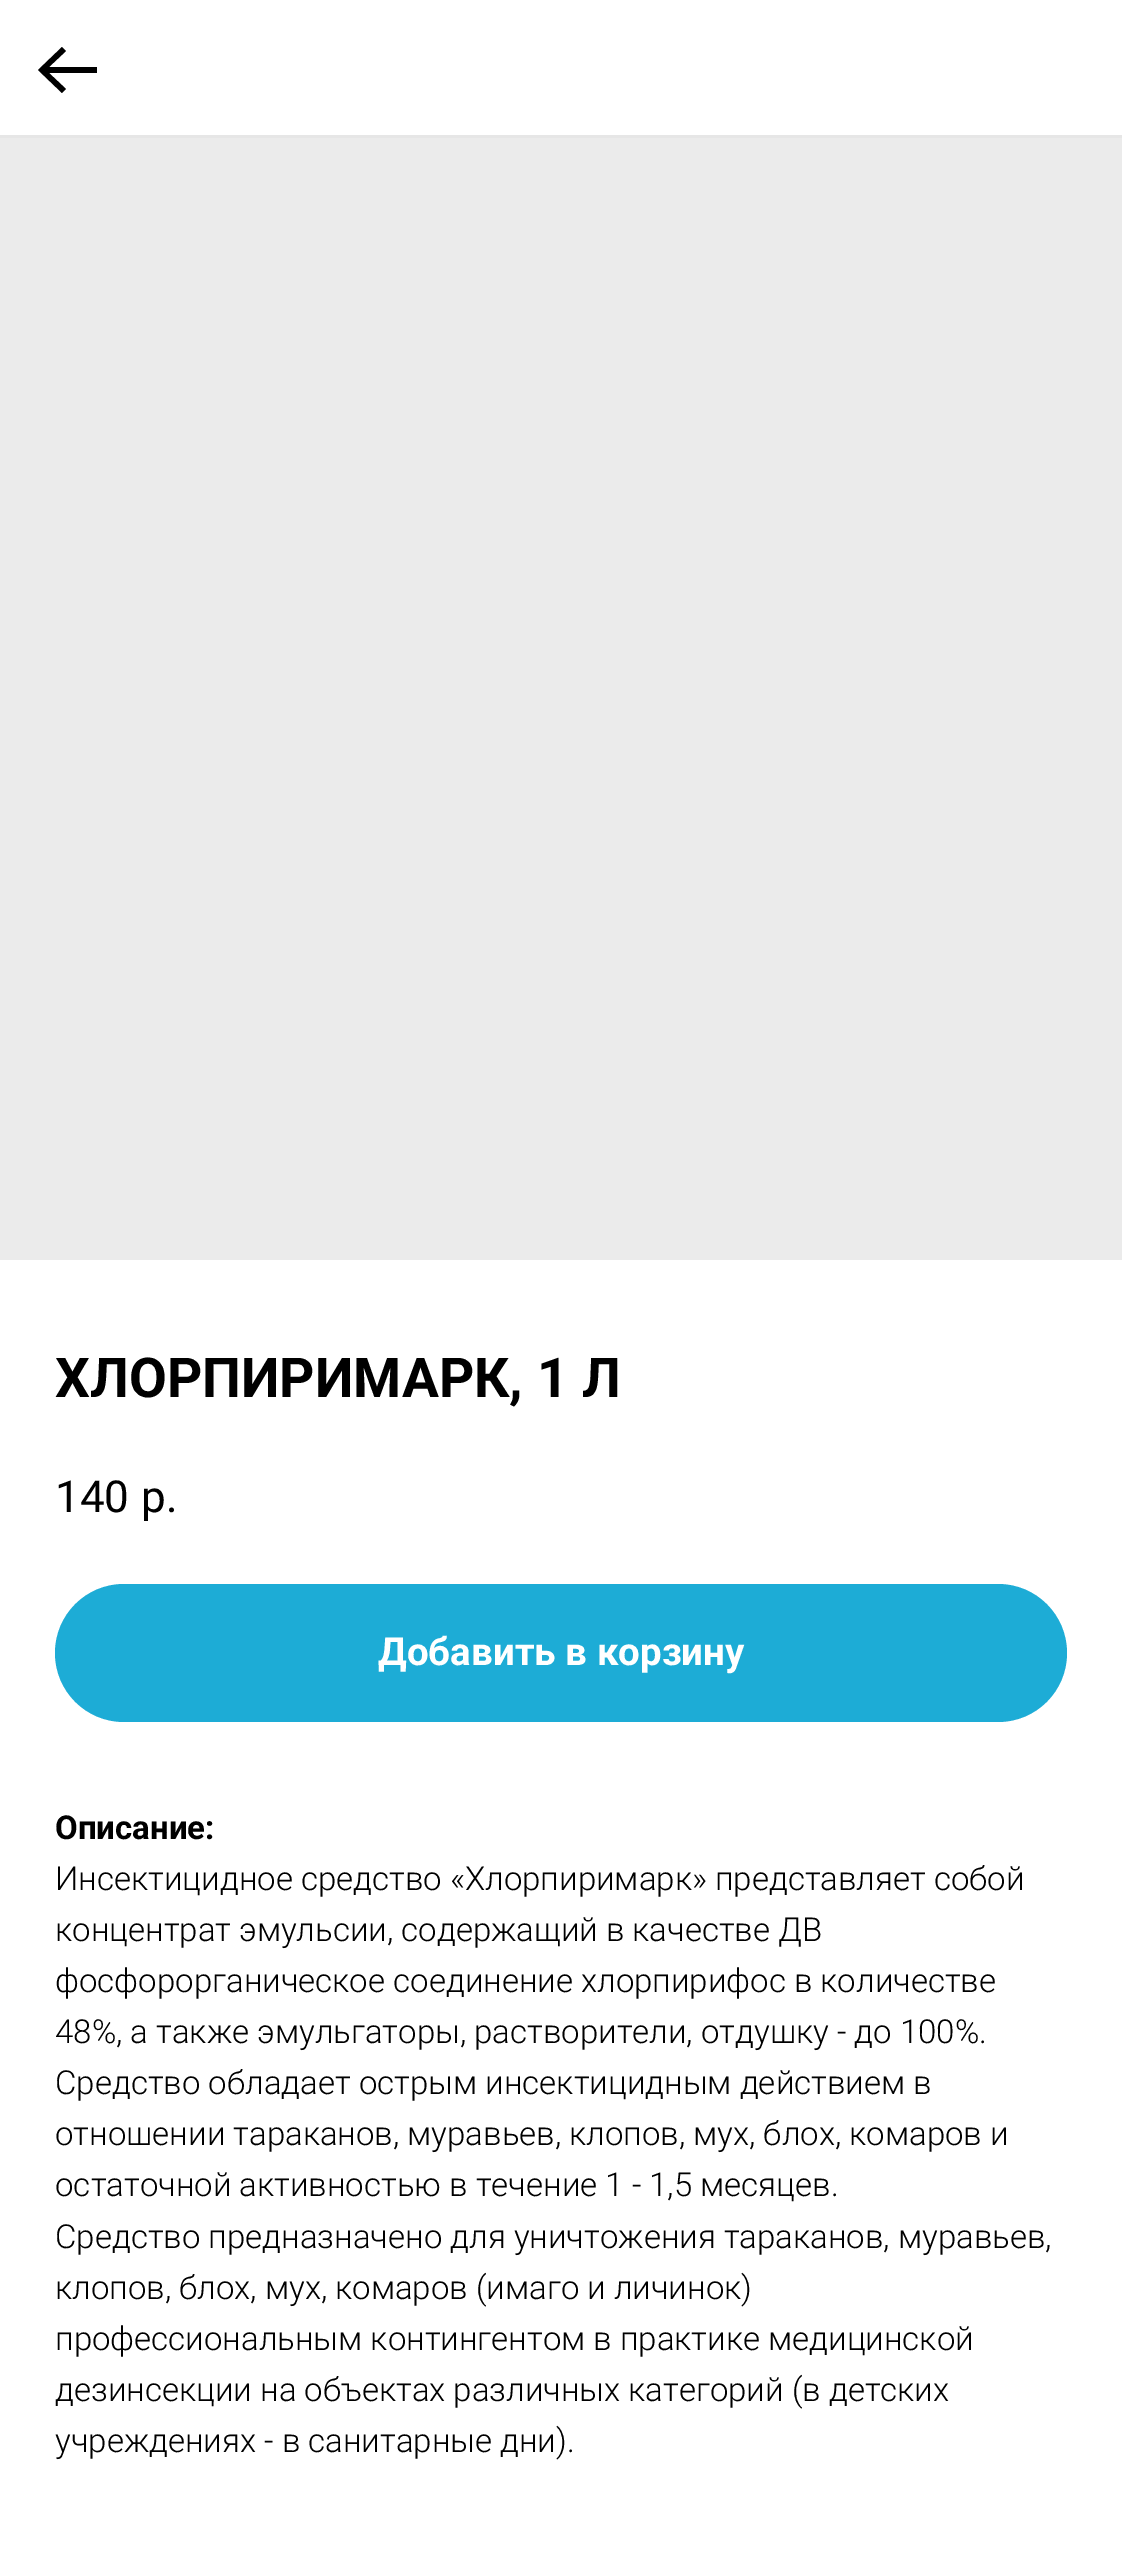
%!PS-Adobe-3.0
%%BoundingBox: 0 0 1122 2552
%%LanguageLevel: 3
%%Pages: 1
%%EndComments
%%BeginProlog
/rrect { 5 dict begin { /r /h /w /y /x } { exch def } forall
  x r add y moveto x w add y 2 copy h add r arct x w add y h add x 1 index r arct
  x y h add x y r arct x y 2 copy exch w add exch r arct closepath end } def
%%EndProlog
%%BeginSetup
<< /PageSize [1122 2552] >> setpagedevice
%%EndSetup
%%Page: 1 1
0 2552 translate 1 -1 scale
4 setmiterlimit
1 setgray
0 0 1122 2552 rectfill
0.902 setgray
0 135 1122 3 rectfill
0 setgray
newpath 62 47 moveto 66 51 lineto 49 67 lineto 97 67 lineto 97 73 lineto 49 73 lineto 66 89 lineto 62 93 lineto 38 70 lineto closepath fill
0.922 setgray
0 138 1122 1122 rectfill
0.114 0.675 0.839 setrgbcolor
55 1584 1012 138 69 rrect fill
/Roboto-Bold [55 0 0 -55 0 0] selectfont
0 setgray
55 1397 moveto (ХЛОРПИРИМАРК, 1 Л) show
/Roboto-Regular [44 0 0 -44 0 0] selectfont
55 1512 moveto (140) show
141 1512 moveto (р.) show
/Roboto-Bold [38.5 0 0 -38.5 0 0] selectfont
1 setgray
378 1665 moveto (Добавить в корзину) show
/Roboto-Bold [33 0 0 -33 0 0] selectfont
0 setgray
55 1839 moveto (Описание:) show
/Roboto-Light [33 0 0 -33 0 0] selectfont
55 1890 moveto (Инсектицидное средство «Хлорпиримарк» представляет собой) show
55 1941 moveto (концентрат эмульсии, содержащий в качестве ДВ) show
55 1992 moveto (фосфорорганическое соединение хлорпирифос в количестве) show
55 2043 moveto (48%, а также эмульгаторы, растворители, отдушку - до 100%.) show
55 2094 moveto (Средство обладает острым инсектицидным действием в) show
55 2145 moveto (отношении тараканов, муравьев, клопов, мух, блох, комаров и) show
55 2196 moveto (остаточной активностью в течение 1 - 1,5 месяцев.) show
55 2248 moveto (Средство предназначено для уничтожения тараканов, муравьев,) show
55 2299 moveto (клопов, блох, мух, комаров \(имаго и личинок\)) show
55 2350 moveto (профессиональным контингентом в практике медицинской) show
55 2401 moveto (дезинсекции на объектах различных категорий \(в детских) show
55 2452 moveto (учреждениях - в санитарные дни\).) show
showpage
%%EOF
